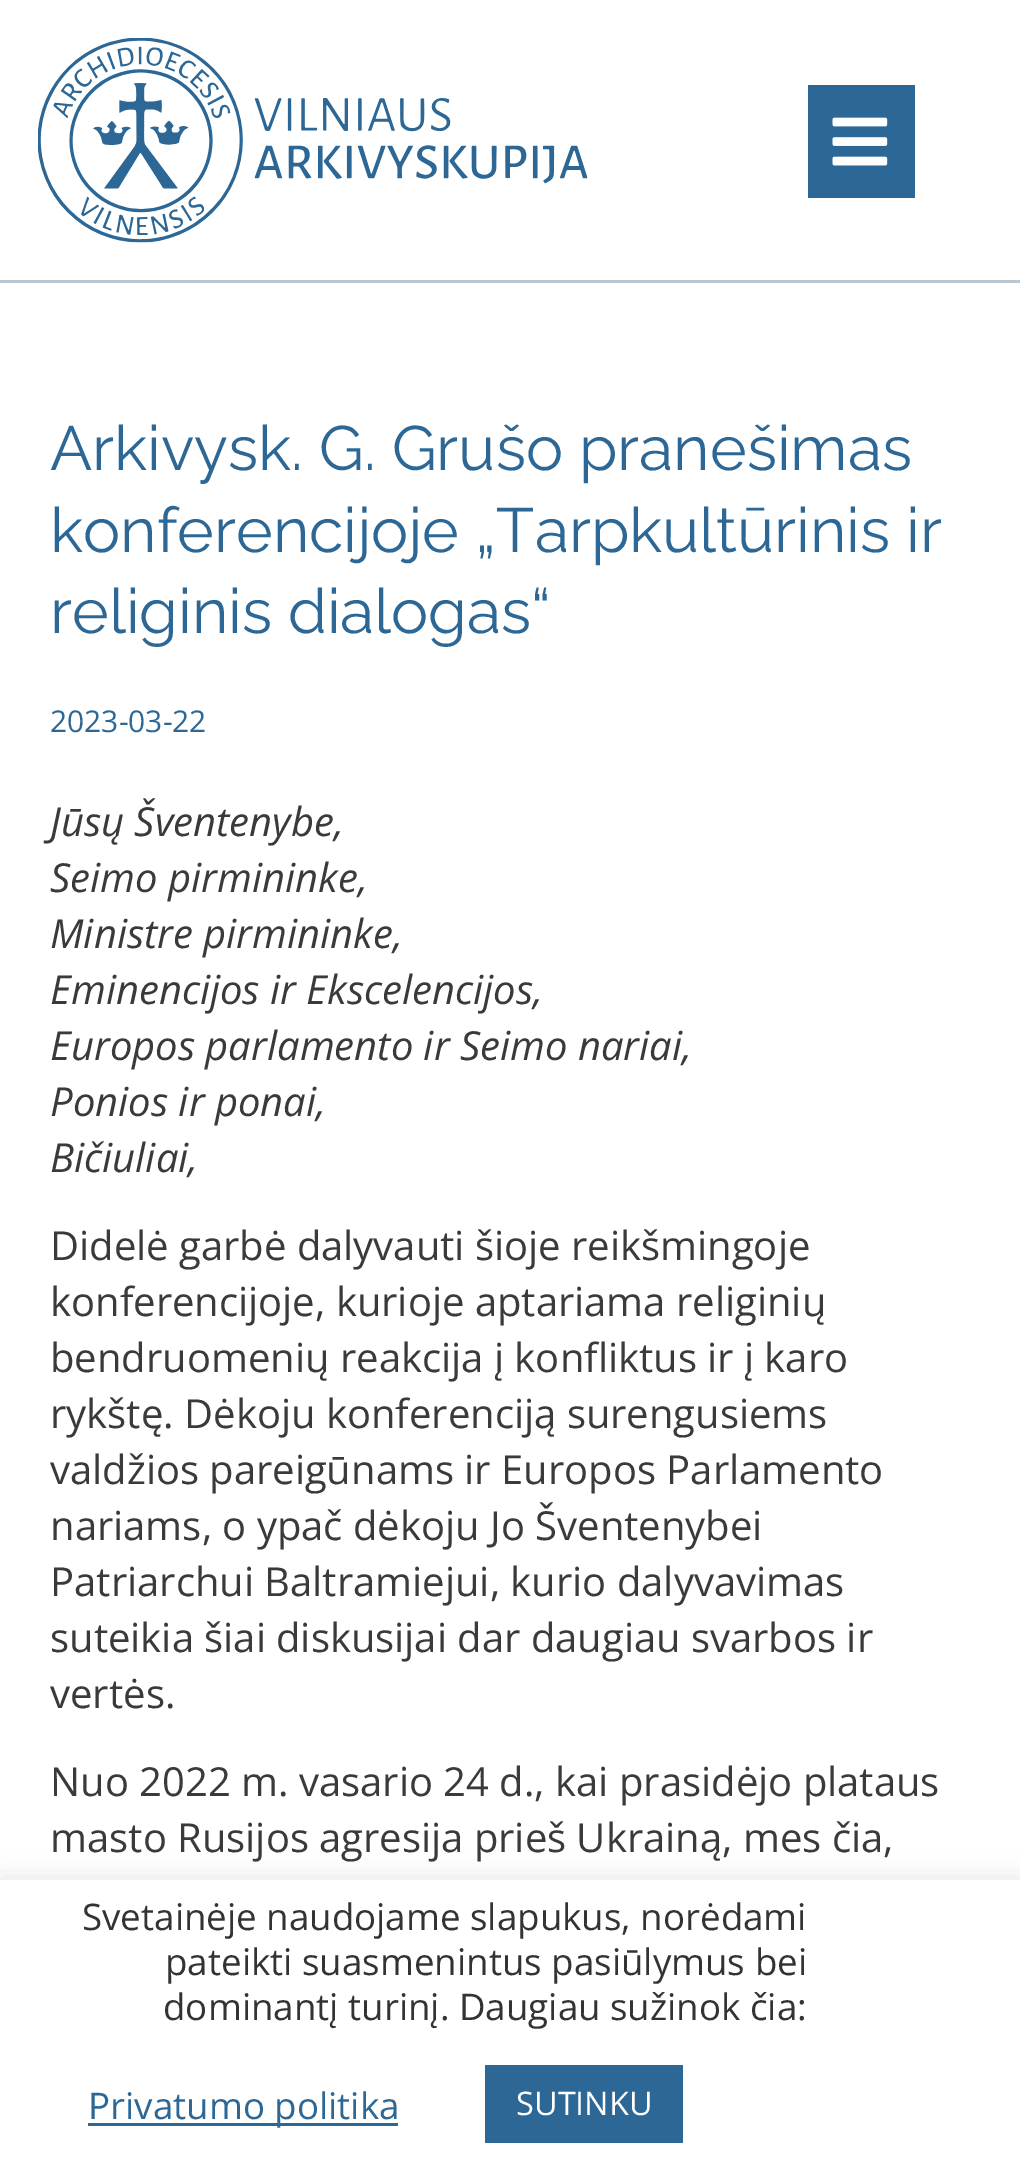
%!PS-Adobe-3.0
%%BoundingBox: 0 0 1020 2167
%%LanguageLevel: 3
%%Pages: 1
%%EndComments
%%BeginProlog
/setalpha { dup .setfillconstantalpha .setstrokeconstantalpha } def
/rrect { 5 dict begin { /r /h /w /y /x } { exch def } forall
  x r add y moveto x w add y 2 copy h add r arct x w add y h add x 1 index r arct
  x y h add x y r arct x y 2 copy exch w add exch r arct closepath end } def
/softshadow { 12 dict begin { /a /b /q /h /w /y /x } { exch def } forall gsave /was 0 def
  9 -2 -9 { dup b mul 4 div /e exch def 1 sub .425 mul 2.718 exch exp 1 add a .99 .min exch div /now exch def
    1 1 now sub 1 was sub div sub setalpha /was now def
    w h .min e 2 mul add 0 gt { x e sub y e sub w e 2 mul add h e 2 mul add
      q e add b .6 mul add w h .min 2 div e add .min 0 .max rrect fill } if } for grestore end } def
/drawimage { 5 dict begin { /h /w /y /x /name } { exch def } forall
  gsave x y translate w h scale
  w h 8 [w 0 0 h 0 0] name (r) file false 3 colorimage grestore end } def
%%EndProlog
%%BeginSetup
<< /PageSize [1020 2167] /PageUsesTransparency true >> setpagedevice
%%EndSetup
%%Page: 1 1
0 .pushpdf14devicefilter
0 2167 translate 1 -1 scale
4 setmiterlimit
1 setgray
0 0 1020 2167 rectfill
0.722 0.78 0.824 setrgbcolor
0 280 1020 3 rectfill
(images/1.raw) 38 38 550 205 drawimage
0.173 0.404 0.584 setrgbcolor
808 85 107 113 rectfill
(images/2.raw) 832 117 56 49 drawimage
0.675 0.671 0.671 setrgbcolor
0 1878 1020 287 0 12.5 0.3 softshadow
1 setgray
0 1880 1020 287 rectfill
0.173 0.404 0.584 setrgbcolor
88 2123 310 3 rectfill
485 2065 198 78 rectfill
/Raleway-Regular [62.5 0 0 -62.5 0 0] selectfont
50 470 moveto (Arkivysk. G. Grušo pranešimas) show
50 552 moveto (konferencijoje „Tarpkultūrinis ir) show
50 633 moveto (religinis dialogas“) show
/OpenSans-Regular [30 0 0 -30 0 0] selectfont
50 732 moveto (2023-03-22) show
/OpenSans-Italic [40 0 0 -40 0 0] selectfont
0.227 setgray
50 836 moveto (Jūsų Šventenybe,) show
50 892 moveto (Seimo pirmininke,) show
50 948 moveto (Ministre pirmininke,) show
50 1004 moveto (Eminencijos ir Ekscelencijos,) show
50 1060 moveto (Europos parlamento ir Seimo nariai,) show
50 1116 moveto (Ponios ir ponai,) show
50 1172 moveto (Bičiuliai,) show
/OpenSans-Regular [40 0 0 -40 0 0] selectfont
50 1260 moveto (Didelė garbė dalyvauti šioje reikšmingoje) show
50 1316 moveto (konferencijoje, kurioje aptariama religinių) show
50 1372 moveto (bendruomenių reakcija į konfliktus ir į karo) show
50 1428 moveto (rykštę. Dėkoju konferenciją surengusiems) show
50 1484 moveto (valdžios pareigūnams ir Europos Parlamento) show
50 1540 moveto (nariams, o ypač dėkoju Jo Šventenybei) show
50 1596 moveto (Patriarchui Baltramiejui, kurio dalyvavimas) show
50 1652 moveto (suteikia šiai diskusijai dar daugiau svarbos ir) show
50 1708 moveto (vertės.) show
50 1796 moveto (Nuo 2022 m. vasario 24 d., kai prasidėjo plataus) show
50 1852 moveto (masto Rusijos agresija prieš Ukrainą, mes čia,) show
/OpenSans-Regular [36.7 0 0 -36.7 0 0] selectfont
0.2 setgray
82 1930 moveto (Svetainėje naudojame slapukus, norėdami) show
165 1975 moveto (pateikti suasmenintus pasiūlymus bei) show
163 2020 moveto (dominantį turinį. Daugiau sužinok čia:) show
0.173 0.404 0.584 setrgbcolor
88 2119 moveto (Privatumo politika) show
/OpenSans-Regular [32.5 0 0 -32.5 0 0] selectfont
1 setgray
516 2115 moveto (SUTINKU) show
.poppdf14devicefilter showpage
%%EOF
